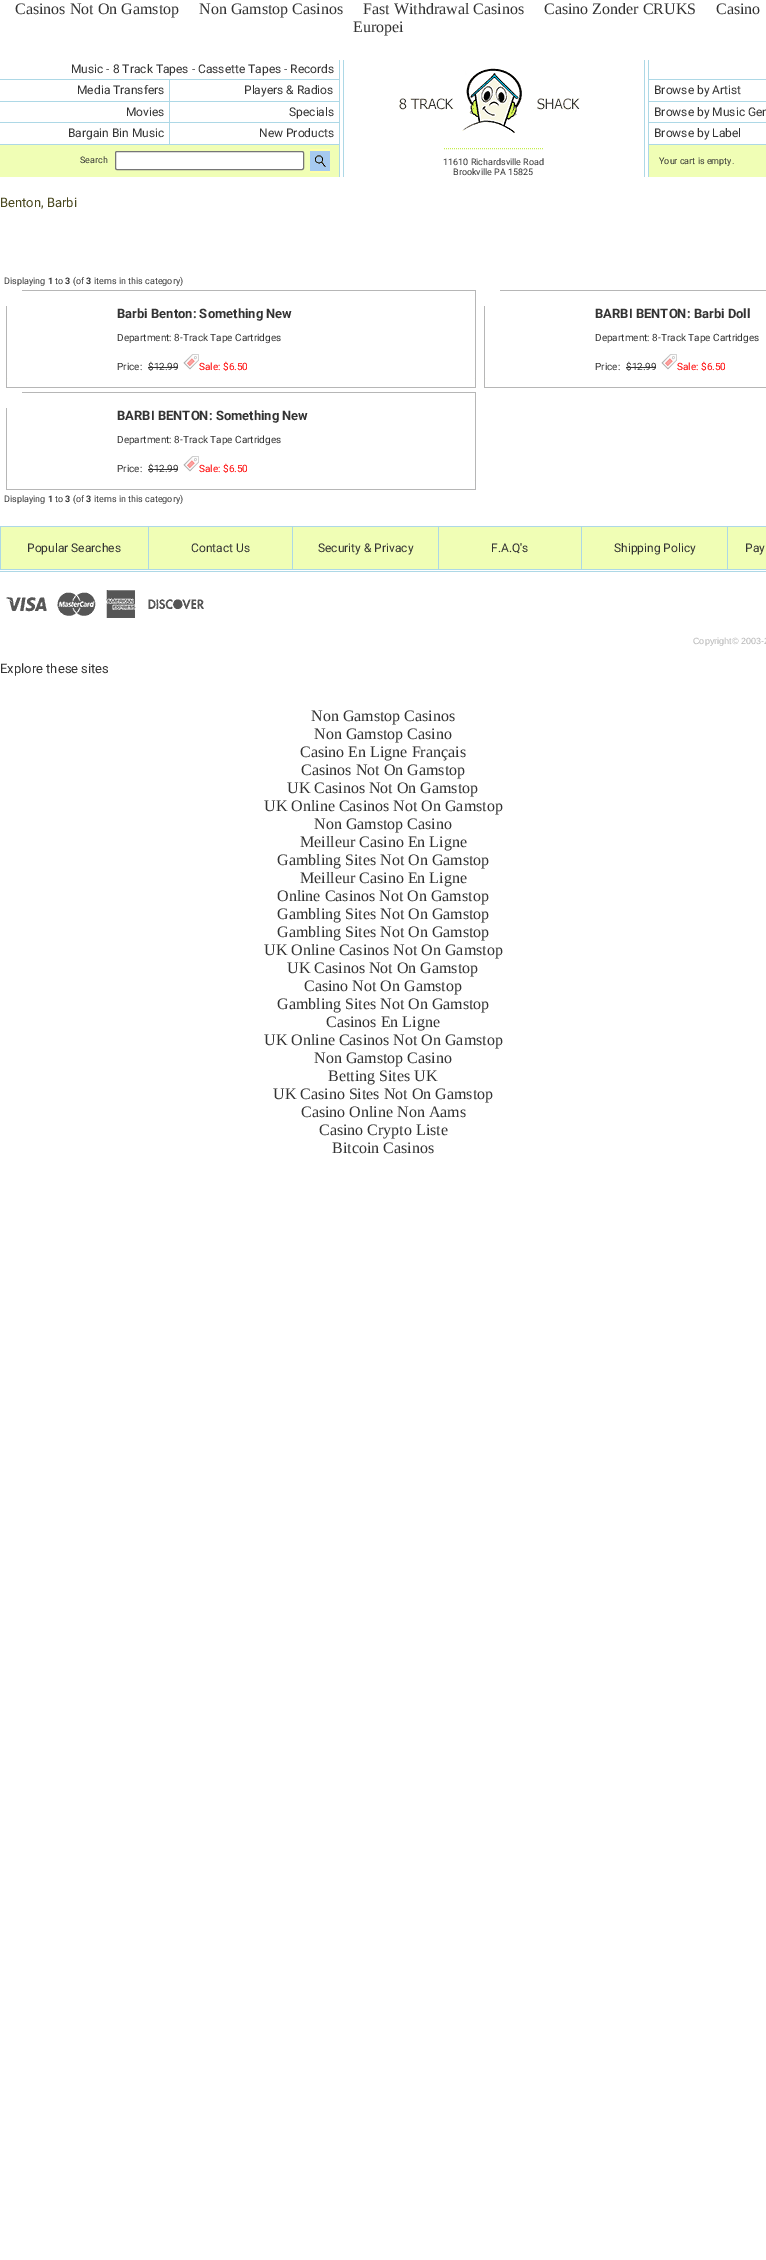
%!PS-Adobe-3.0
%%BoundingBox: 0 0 766 2260
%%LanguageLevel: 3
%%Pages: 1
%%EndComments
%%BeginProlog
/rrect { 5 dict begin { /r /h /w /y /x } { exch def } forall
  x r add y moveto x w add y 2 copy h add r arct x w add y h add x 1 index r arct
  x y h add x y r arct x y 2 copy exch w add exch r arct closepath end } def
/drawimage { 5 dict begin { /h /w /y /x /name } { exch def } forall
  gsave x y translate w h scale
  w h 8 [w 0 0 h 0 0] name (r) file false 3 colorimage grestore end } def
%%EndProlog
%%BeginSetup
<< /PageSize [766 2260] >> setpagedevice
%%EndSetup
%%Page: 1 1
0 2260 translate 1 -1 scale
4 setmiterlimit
1 setgray
0 0 766 2260 rectfill
0.678 0.847 0.902 setrgbcolor
343 60 1 117 rectfill
339 60 1 117 rectfill
648 60 1 117 rectfill
644 60 1 117 rectfill
(images/1.raw) 399 68 181 65 drawimage
0.773 0.929 0.306 setrgbcolor
[1 1] 0 setdash
newpath 444 148.5 moveto 544 148.5 lineto stroke
0.678 0.847 0.902 setrgbcolor
0 79 339 1 rectfill
0 101 339 1 rectfill
169 79 1 23 rectfill
649 79 117 1 rectfill
649 101 117 1 rectfill
0 122 339 1 rectfill
169 102 1 21 rectfill
649 122 117 1 rectfill
0 144 339 1 rectfill
169 123 1 22 rectfill
649 144 117 1 rectfill
0.941 0.996 0.71 setrgbcolor
0 145 339 32 rectfill
1 setgray
115.5 151.5 188 18 1.5 rrect gsave fill grestore
0.463 setgray
[] 0 setdash
stroke
(images/2.raw) 310 149 20 24 drawimage
0.941 0.996 0.71 setrgbcolor
649 145 117 32 rectfill
0.714 setgray
22 290 438 1 rectfill
(images/3.raw) 460 290 16 16 drawimage
6 306 1 66 rectfill
0.2 setgray
148 367 30 1 rectfill
(images/4.raw) 183 354 16 16 drawimage
0.714 setgray
475 306 1 66 rectfill
(images/5.raw) 6 372 16 16 drawimage
22 387 438 1 rectfill
(images/6.raw) 460 372 16 16 drawimage
500 290 266 1 rectfill
484 306 1 66 rectfill
0.2 setgray
626 367 30 1 rectfill
(images/4.raw) 661 354 16 16 drawimage
(images/5.raw) 484 372 16 16 drawimage
0.714 setgray
500 387 266 1 rectfill
22 392 438 1 rectfill
(images/3.raw) 460 392 16 16 drawimage
6 408 1 66 rectfill
0.2 setgray
148 469 30 1 rectfill
(images/4.raw) 183 456 16 16 drawimage
0.714 setgray
475 408 1 66 rectfill
(images/5.raw) 6 474 16 16 drawimage
22 489 438 1 rectfill
(images/6.raw) 460 474 16 16 drawimage
0.941 0.996 0.71 setrgbcolor
1 527 147 42 rectfill
0.678 0.847 0.902 setrgbcolor
0 526 766 1 rectfill
148 526 1 43 rectfill
0 526 1 43 rectfill
0.941 0.996 0.71 setrgbcolor
149 527 143 42 rectfill
0.678 0.847 0.902 setrgbcolor
292 526 1 43 rectfill
0.941 0.996 0.71 setrgbcolor
293 527 145 42 rectfill
0.678 0.847 0.902 setrgbcolor
438 526 1 43 rectfill
0.941 0.996 0.71 setrgbcolor
439 527 142 42 rectfill
0.678 0.847 0.902 setrgbcolor
581 526 1 43 rectfill
0.941 0.996 0.71 setrgbcolor
582 527 145 42 rectfill
0.678 0.847 0.902 setrgbcolor
727 526 1 43 rectfill
0.941 0.996 0.71 setrgbcolor
728 527 38 42 rectfill
0.678 0.847 0.902 setrgbcolor
0 569 766 1 rectfill
0 571 766 1 rectfill
(images/7.raw) 6 590 198 28 drawimage
/LiberationSerif-Regular [16 0 0 -16 0 0] selectfont
0.2 setgray
15 14 moveto (Casinos Not On Gamstop) show
199 14 moveto (Non Gamstop Casinos) show
363 14 moveto (Fast Withdrawal Casinos) show
544 14 moveto (Casino Zonder CRUKS) show
716 14 moveto (Casino) show
353 32 moveto (Europei) show
/Roboto-Regular [12 0 0 -12 0 0] selectfont
71 73 moveto (Music - 8 Track Tapes - Cassette Tapes - Records) show
/Roboto-Regular [9 0 0 -9 0 0] selectfont
443 165 moveto (11610 Richardsville Road) show
453 175 moveto (Brookville PA 15825) show
/Roboto-Regular [12 0 0 -12 0 0] selectfont
77 94 moveto (Media Transfers) show
244 94 moveto (Players & Radios) show
654 94 moveto (Browse by Artist) show
126 116 moveto (Movies) show
289 116 moveto (Specials) show
654 116 moveto (Browse by Music Gen) show
68 137 moveto (Bargain Bin Music) show
259 137 moveto (New Products) show
654 137 moveto (Browse by Label) show
/Roboto-Regular [9 0 0 -9 0 0] selectfont
80 163 moveto (Search) show
659 164 moveto (Your cart is empty.) show
/Roboto-Regular [13 0 0 -13 0 0] selectfont
0.29 0.282 0.122 setrgbcolor
0 207 moveto (Benton, Barbi) show
/Roboto-Regular [9 0 0 -9 0 0] selectfont
0.2 setgray
4 284 moveto (Displaying) show
/Roboto-Bold [9 0 0 -9 0 0] selectfont
48 284 moveto (1) show
/Roboto-Regular [9 0 0 -9 0 0] selectfont
55 284 moveto (to) show
/Roboto-Bold [9 0 0 -9 0 0] selectfont
65 284 moveto (3) show
/Roboto-Regular [9 0 0 -9 0 0] selectfont
73 284 moveto (\(of) show
/Roboto-Bold [9 0 0 -9 0 0] selectfont
86 284 moveto (3) show
/Roboto-Regular [9 0 0 -9 0 0] selectfont
94 284 moveto (items in this category\)) show
/Roboto-Bold [13 0 0 -13 0 0] selectfont
117 318 moveto (Barbi Benton: Something New) show
/Roboto-Regular [10 0 0 -10 0 0] selectfont
117 341 moveto (Department: 8-Track Tape Cartridges) show
117 370 moveto (Price:) show
148 370 moveto ($12.99) show
1 0 0 setrgbcolor
199 370 moveto (Sale: $6.50) show
/Roboto-Bold [13 0 0 -13 0 0] selectfont
0.2 setgray
595 318 moveto (BARBI BENTON: Barbi Doll) show
/Roboto-Regular [10 0 0 -10 0 0] selectfont
595 341 moveto (Department: 8-Track Tape Cartridges) show
595 370 moveto (Price:) show
626 370 moveto ($12.99) show
1 0 0 setrgbcolor
677 370 moveto (Sale: $6.50) show
/Roboto-Bold [13 0 0 -13 0 0] selectfont
0.2 setgray
117 420 moveto (BARBI BENTON: Something New) show
/Roboto-Regular [10 0 0 -10 0 0] selectfont
117 443 moveto (Department: 8-Track Tape Cartridges) show
117 472 moveto (Price:) show
148 472 moveto ($12.99) show
1 0 0 setrgbcolor
199 472 moveto (Sale: $6.50) show
/Roboto-Regular [9 0 0 -9 0 0] selectfont
0.2 setgray
4 502 moveto (Displaying) show
/Roboto-Bold [9 0 0 -9 0 0] selectfont
48 502 moveto (1) show
/Roboto-Regular [9 0 0 -9 0 0] selectfont
55 502 moveto (to) show
/Roboto-Bold [9 0 0 -9 0 0] selectfont
65 502 moveto (3) show
/Roboto-Regular [9 0 0 -9 0 0] selectfont
73 502 moveto (\(of) show
/Roboto-Bold [9 0 0 -9 0 0] selectfont
86 502 moveto (3) show
/Roboto-Regular [9 0 0 -9 0 0] selectfont
94 502 moveto (items in this category\)) show
/Roboto-Regular [12 0 0 -12 0 0] selectfont
27 552 moveto (Popular Searches) show
191 552 moveto (Contact Us) show
318 552 moveto (Security & Privacy) show
491 552 moveto (F.A.Q's) show
614 552 moveto (Shipping Policy) show
745 552 moveto (Pay) show
/LiberationSans-Regular [9 0 0 -9 0 0] selectfont
0.714 setgray
693 644 moveto (Copyright© 2003-2) show
/Roboto-Regular [13 0 0 -13 0 0] selectfont
0.2 setgray
0 673 moveto (Explore these sites) show
/LiberationSerif-Regular [16 0 0 -16 0 0] selectfont
311 721 moveto (Non Gamstop Casinos) show
314 739 moveto (Non Gamstop Casino) show
300 757 moveto (Casino En Ligne Français) show
301 775 moveto (Casinos Not On Gamstop) show
287 793 moveto (UK Casinos Not On Gamstop) show
264 811 moveto (UK Online Casinos Not On Gamstop) show
314 829 moveto (Non Gamstop Casino) show
300 847 moveto (Meilleur Casino En Ligne) show
277 865 moveto (Gambling Sites Not On Gamstop) show
300 883 moveto (Meilleur Casino En Ligne) show
277 901 moveto (Online Casinos Not On Gamstop) show
277 919 moveto (Gambling Sites Not On Gamstop) show
277 937 moveto (Gambling Sites Not On Gamstop) show
264 955 moveto (UK Online Casinos Not On Gamstop) show
287 973 moveto (UK Casinos Not On Gamstop) show
304 991 moveto (Casino Not On Gamstop) show
277 1009 moveto (Gambling Sites Not On Gamstop) show
326 1027 moveto (Casinos En Ligne) show
264 1045 moveto (UK Online Casinos Not On Gamstop) show
314 1063 moveto (Non Gamstop Casino) show
328 1081 moveto (Betting Sites UK) show
273 1099 moveto (UK Casino Sites Not On Gamstop) show
301 1117 moveto (Casino Online Non Aams) show
319 1135 moveto (Casino Crypto Liste) show
332 1153 moveto (Bitcoin Casinos) show
showpage
%%EOF
